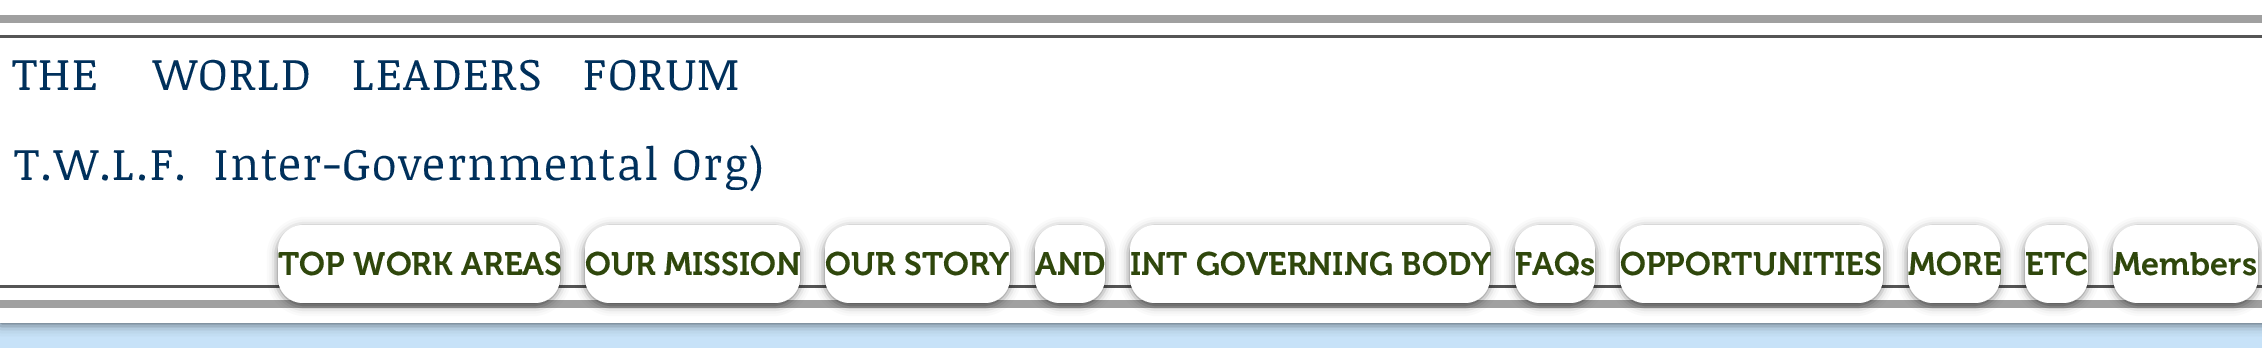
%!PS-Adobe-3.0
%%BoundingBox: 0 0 2262 348
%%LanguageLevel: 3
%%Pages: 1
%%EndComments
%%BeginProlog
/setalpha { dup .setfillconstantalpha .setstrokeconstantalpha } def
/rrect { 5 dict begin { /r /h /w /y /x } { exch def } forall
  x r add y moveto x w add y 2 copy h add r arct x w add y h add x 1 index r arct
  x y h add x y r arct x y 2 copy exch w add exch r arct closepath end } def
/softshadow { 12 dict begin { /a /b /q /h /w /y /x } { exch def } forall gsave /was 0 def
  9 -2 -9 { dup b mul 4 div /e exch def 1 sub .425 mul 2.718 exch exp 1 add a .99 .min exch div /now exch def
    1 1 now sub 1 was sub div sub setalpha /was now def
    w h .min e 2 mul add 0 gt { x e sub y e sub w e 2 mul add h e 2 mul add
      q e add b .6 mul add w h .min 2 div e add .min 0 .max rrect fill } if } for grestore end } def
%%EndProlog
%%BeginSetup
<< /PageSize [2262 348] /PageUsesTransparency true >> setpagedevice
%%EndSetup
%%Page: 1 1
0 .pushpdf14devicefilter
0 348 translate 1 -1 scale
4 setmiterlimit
0.78 0.886 0.973 setrgbcolor
0 0 2262 348 rectfill
0 setgray
0 0 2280 323 0 6 0.7 softshadow
1 setgray
0 0 2262 323 rectfill
0.627 setgray
0 15 2262 8 rectfill
0 300 2262 8 rectfill
0.333 setgray
0 35 2262 3 rectfill
0 285 2262 3 rectfill
0 setgray
278 228 282 77 25 5 0.6 softshadow
1 setgray
278 225 282 78 25 rrect fill
0 setgray
585 228 215 77 25 5 0.6 softshadow
1 setgray
585 225 215 78 25 rrect fill
0 setgray
825 228 185 77 25 5 0.6 softshadow
1 setgray
825 225 185 78 25 rrect fill
0 setgray
1035 228 70 77 25 5 0.6 softshadow
1 setgray
1035 225 70 78 25 rrect fill
0 setgray
1130 228 360 77 25 5 0.6 softshadow
1 setgray
1130 225 360 78 25 rrect fill
0 setgray
1515 228 80 77 25 5 0.6 softshadow
1 setgray
1515 225 80 78 25 rrect fill
0 setgray
1620 228 263 77 25 5 0.6 softshadow
1 setgray
1620 225 263 78 25 rrect fill
0 setgray
1908 228 92 77 25 5 0.6 softshadow
1 setgray
1908 225 92 78 25 rrect fill
0 setgray
2025 228 63 77 25 5 0.6 softshadow
1 setgray
2025 225 63 78 25 rrect fill
0 setgray
2113 228 145 77 25 5 0.6 softshadow
1 setgray
2113 225 145 78 25 rrect fill
/NoticiaText-Regular [45 0 0 -45 0 0] selectfont
0 0.188 0.357 setrgbcolor
12 90 moveto 1.35 0 (THE    WORLD   LEADERS   FORUM) ashow
14 180 moveto 1.35 0 (T.W.L.F.  Inter-Governmental Org\)) ashow
/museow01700-SemiBold [32.5 0 0 -32.5 0 0] selectfont
0.184 0.278 0.047 setrgbcolor
278 275 moveto (TOP WORK AREAS) show
585 275 moveto (OUR MISSION) show
825 275 moveto (OUR STORY) show
1035 275 moveto (AND) show
1130 275 moveto (INT GOVERNING BODY) show
1515 275 moveto (FAQs) show
1620 275 moveto (OPPORTUNITIES) show
1908 275 moveto (MORE) show
2025 275 moveto (ETC) show
2113 275 moveto (Members) show
.poppdf14devicefilter showpage
%%EOF
